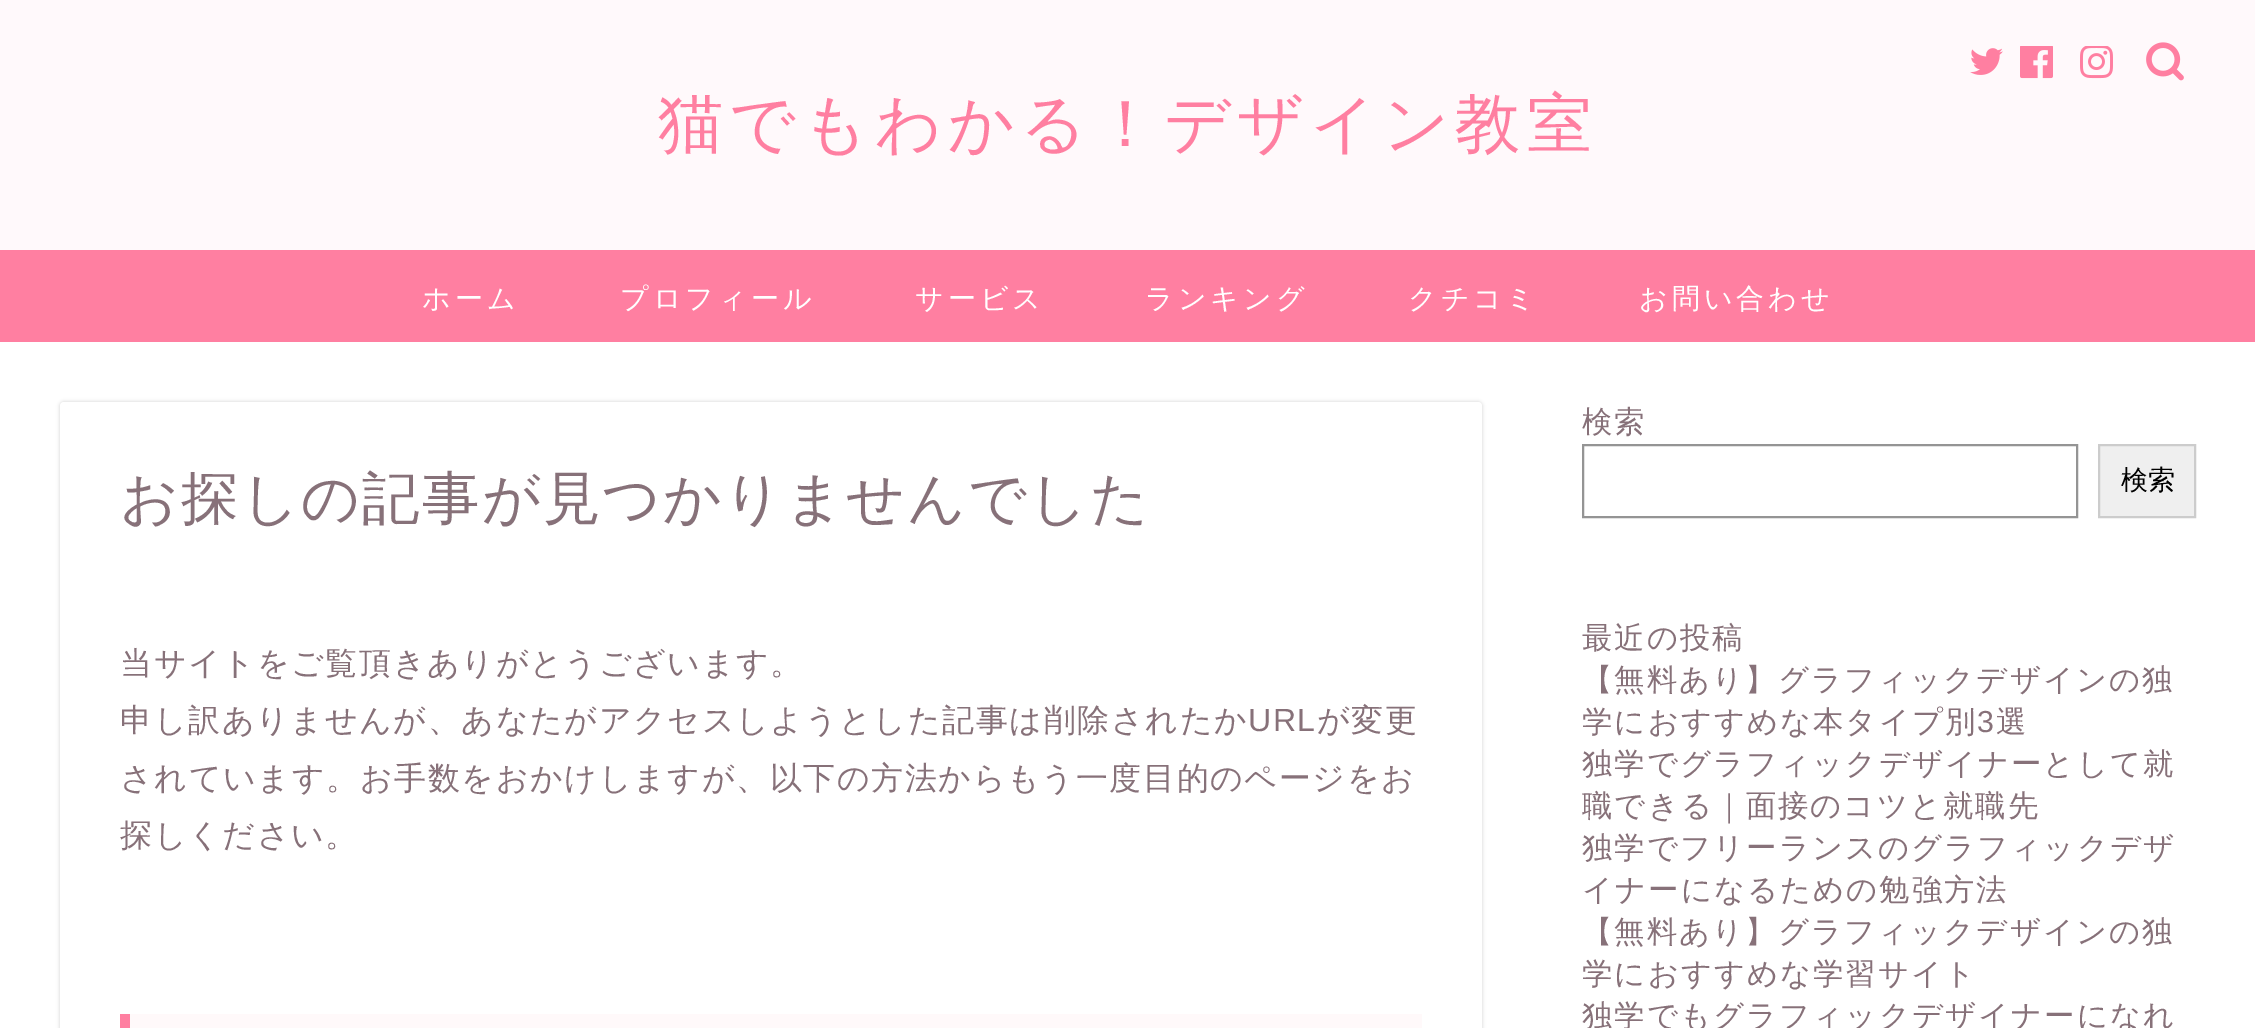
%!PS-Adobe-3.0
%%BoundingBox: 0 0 2255 1028
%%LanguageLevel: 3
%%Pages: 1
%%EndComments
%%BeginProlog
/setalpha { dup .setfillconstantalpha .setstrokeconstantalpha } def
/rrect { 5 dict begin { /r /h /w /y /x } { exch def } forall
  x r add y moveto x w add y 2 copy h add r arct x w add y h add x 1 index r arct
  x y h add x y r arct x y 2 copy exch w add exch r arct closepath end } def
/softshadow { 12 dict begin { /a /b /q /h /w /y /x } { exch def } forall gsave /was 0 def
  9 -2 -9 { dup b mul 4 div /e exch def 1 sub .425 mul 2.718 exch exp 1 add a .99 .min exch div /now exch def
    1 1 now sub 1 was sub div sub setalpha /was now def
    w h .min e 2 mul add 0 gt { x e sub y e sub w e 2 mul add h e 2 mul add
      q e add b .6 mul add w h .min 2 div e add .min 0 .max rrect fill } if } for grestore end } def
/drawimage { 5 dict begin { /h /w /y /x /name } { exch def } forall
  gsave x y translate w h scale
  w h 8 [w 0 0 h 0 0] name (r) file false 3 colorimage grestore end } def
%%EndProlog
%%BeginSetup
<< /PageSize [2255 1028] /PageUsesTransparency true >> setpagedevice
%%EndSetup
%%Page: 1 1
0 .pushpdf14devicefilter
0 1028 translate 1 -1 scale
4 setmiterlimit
1 setgray
0 0 2255 1028 rectfill
1 0.976 0.984 setrgbcolor
0 0 2255 250 rectfill
(images/1.raw) 1970 48 33 27 drawimage
(images/2.raw) 2020 46 33 33 drawimage
(images/3.raw) 2080 46 33 33 drawimage
(images/4.raw) 2146 42 38 39 drawimage
1 0.498 0.631 setrgbcolor
0 250 2255 92 rectfill
0 setgray
60 402 1422 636 4 2 0.18 softshadow
1 setgray
60 402 1422 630 4 rrect fill
1 0.498 0.631 setrgbcolor
120 1014 10 14 rectfill
1 0.976 0.98 setrgbcolor
130 1014 1292 14 rectfill
0.58 setgray
2 setlinewidth
1583 445 494 72 rectstroke
0.937 setgray
newpath 2099 445 moveto 2195 445 lineto 2195 517 lineto 2099 517 lineto closepath gsave fill grestore
0.8 setgray
stroke
/WenQuanYiZenHei-Medium [65.25 0 0 -65.25 0 0] selectfont
1 0.498 0.631 setrgbcolor
658 146 moveto 6 0 (猫でもわかる！デザイン教室) ashow
/WenQuanYiZenHei-Medium [28 0 0 -28 0 0] selectfont
1 setgray
422 308 moveto 4 0 (ホーム) ashow
620 308 moveto 4 0 (プロフィール) ashow
915 308 moveto 4 0 (サービス) ashow
1145 308 moveto 4 0 (ランキング) ashow
1408 308 moveto 4 0 (クチコミ) ashow
1639 308 moveto 4 0 (お問い合わせ) ashow
/WenQuanYiZenHei-Medium [57.6 0 0 -57.6 0 0] selectfont
0.529 0.443 0.475 setrgbcolor
120 518 moveto 2 0 (お探しの記事が見つかりませんでした) ashow
/WenQuanYiZenHei-Medium [32 0 0 -32 0 0] selectfont
120 674 moveto 1.6 0 (当サイトをご覧頂きありがとうございます。) ashow
120 731 moveto 1.6 0 (申し訳ありませんが、あなたがアクセスしようとした記事は削除されたか) ashow
/LiberationSans-Regular [32 0 0 -32 0 0] selectfont
1248 731 moveto 1.6 0 (URL) ashow
/WenQuanYiZenHei-Medium [32 0 0 -32 0 0] selectfont
1317 731 moveto 1.6 0 (が変更) ashow
120 789 moveto 1.6 0 (されています。お手数をおかけしますが、以下の方法からもう一度目的のページをお) ashow
120 846 moveto 1.6 0 (探しください。) ashow
/WenQuanYiZenHei-Medium [30.4 0 0 -30.4 0 0] selectfont
1582 432 moveto 2 0 (検索) ashow
/WenQuanYiZenHei-Medium [27 0 0 -27 0 0] selectfont
0 setgray
2121 489 moveto (検索) show
/WenQuanYiZenHei-Medium [30.4 0 0 -30.4 0 0] selectfont
0.529 0.443 0.475 setrgbcolor
1582 648 moveto 2 0 (最近の投稿) ashow
1582 690 moveto 2 0 (【無料あり】グラフィックデザインの独) ashow
1582 732 moveto 2 0 (学におすすめな本タイプ別) ashow
/LiberationSans-Regular [30.4 0 0 -30.4 0 0] selectfont
1977 732 moveto 2 0 (3) ashow
/WenQuanYiZenHei-Medium [30.4 0 0 -30.4 0 0] selectfont
1996 732 moveto 2 0 (選) ashow
1582 774 moveto 2 0 (独学でグラフィックデザイナーとして就) ashow
1582 816 moveto 2 0 (職できる｜面接のコツと就職先) ashow
1582 858 moveto 2 0 (独学でフリーランスのグラフィックデザ) ashow
1582 900 moveto 2 0 (イナーになるための勉強方法) ashow
1582 942 moveto 2 0 (【無料あり】グラフィックデザインの独) ashow
1582 984 moveto 2 0 (学におすすめな学習サイト) ashow
1582 1026 moveto 2 0 (独学でもグラフィックデザイナーになれ) ashow
.poppdf14devicefilter showpage
%%EOF
